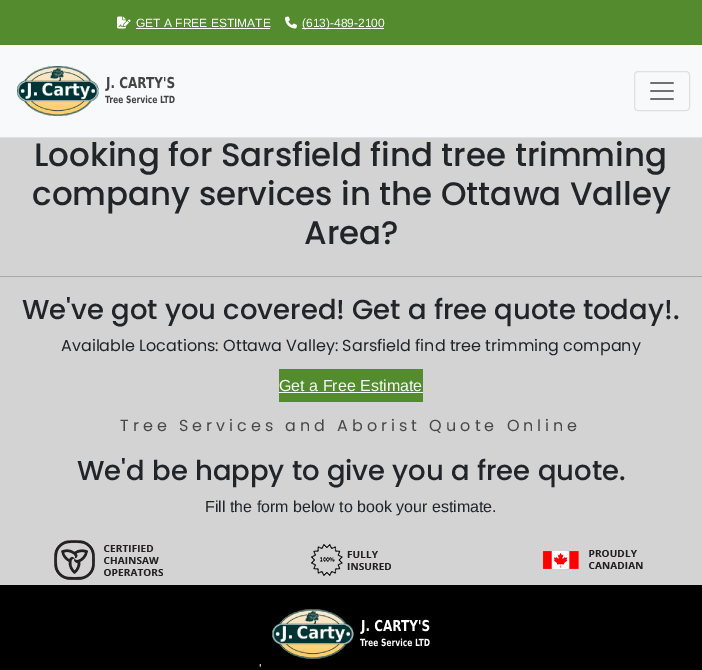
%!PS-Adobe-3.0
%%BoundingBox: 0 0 702 670
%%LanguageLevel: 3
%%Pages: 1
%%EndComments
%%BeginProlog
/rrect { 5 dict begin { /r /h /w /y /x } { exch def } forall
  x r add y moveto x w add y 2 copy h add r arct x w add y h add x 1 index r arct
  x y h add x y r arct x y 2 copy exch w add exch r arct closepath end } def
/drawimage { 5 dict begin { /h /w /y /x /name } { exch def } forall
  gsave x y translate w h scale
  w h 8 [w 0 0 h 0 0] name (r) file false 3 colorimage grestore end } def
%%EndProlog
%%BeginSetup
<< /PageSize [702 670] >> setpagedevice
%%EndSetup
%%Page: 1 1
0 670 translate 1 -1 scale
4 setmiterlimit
0.827 setgray
0 0 702 670 rectfill
0.973 0.976 0.98 setrgbcolor
0 45 702 92 rectfill
0.871 0.886 0.902 setrgbcolor
0 137 702 1 rectfill
0.333 0.545 0.184 setrgbcolor
0 0 702 45 rectfill
(images/1.raw) 117 16 14 13 drawimage
1 setgray
136 28 134 1 rectfill
(images/2.raw) 285 16 12 13 drawimage
302 28 82 1 rectfill
(images/3.raw) 17 66 158 50 drawimage
0.875 0.878 0.882 setrgbcolor
634.5 71.5 55 39 3.5 rrect stroke
(images/4.raw) 650 82 24 18 drawimage
0.655 0.659 0.663 setrgbcolor
0 276 702 1 rectfill
0.333 0.545 0.184 setrgbcolor
279 369 144 33 rectfill
0.957 0.984 0.957 setrgbcolor
279 392 144 1 rectfill
(images/5.raw) 54 540 109 40 drawimage
(images/6.raw) 311 544 80 32 drawimage
(images/7.raw) 543 550 100 19 drawimage
0 setgray
0 585 702 85 rectfill
(images/8.raw) 272 609 158 50 drawimage
/LiberationSans-Regular [12 0 0 -12 0 0] selectfont
0.996 setgray
136 27 moveto (GET A FREE ESTIMATE) show
302 27 moveto (\(613\)-489-2100) show
/Poppins-Medium [32.5 0 0 -32.5 0 0] selectfont
0.129 0.145 0.161 setrgbcolor
34 166 moveto (Looking for Sarsfield find tree trimming) show
32 205 moveto (company services in the Ottawa Valley) show
304 244 moveto (Area?) show
/Poppins-Medium [27.5 0 0 -27.5 0 0] selectfont
22 319 moveto (We've got you covered! Get a free quote today!.) show
/Poppins-Regular [16 0 0 -16 0 0] selectfont
61 351 moveto (Available Locations: Ottawa Valley: Sarsfield find tree trimming company) show
/LiberationSans-Regular [16 0 0 -16 0 0] selectfont
0.957 0.984 0.957 setrgbcolor
279 391 moveto (Get a Free Estimate) show
/Poppins-Regular [16 0 0 -16 0 0] selectfont
0.282 setgray
120 431 moveto 4 0 (Tree Services and Aborist Quote Online) ashow
/Poppins-Medium [27.5 0 0 -27.5 0 0] selectfont
0.129 0.145 0.161 setrgbcolor
77 480 moveto (We'd be happy to give you a free quote.) show
/LiberationSans-Regular [16 0 0 -16 0 0] selectfont
205 512 moveto (Fill the form below to book your estimate.) show
/LiberationSans-Regular [13 0 0 -13 0 0] selectfont
0.996 setgray
259 673 moveto (') show
showpage
%%EOF
